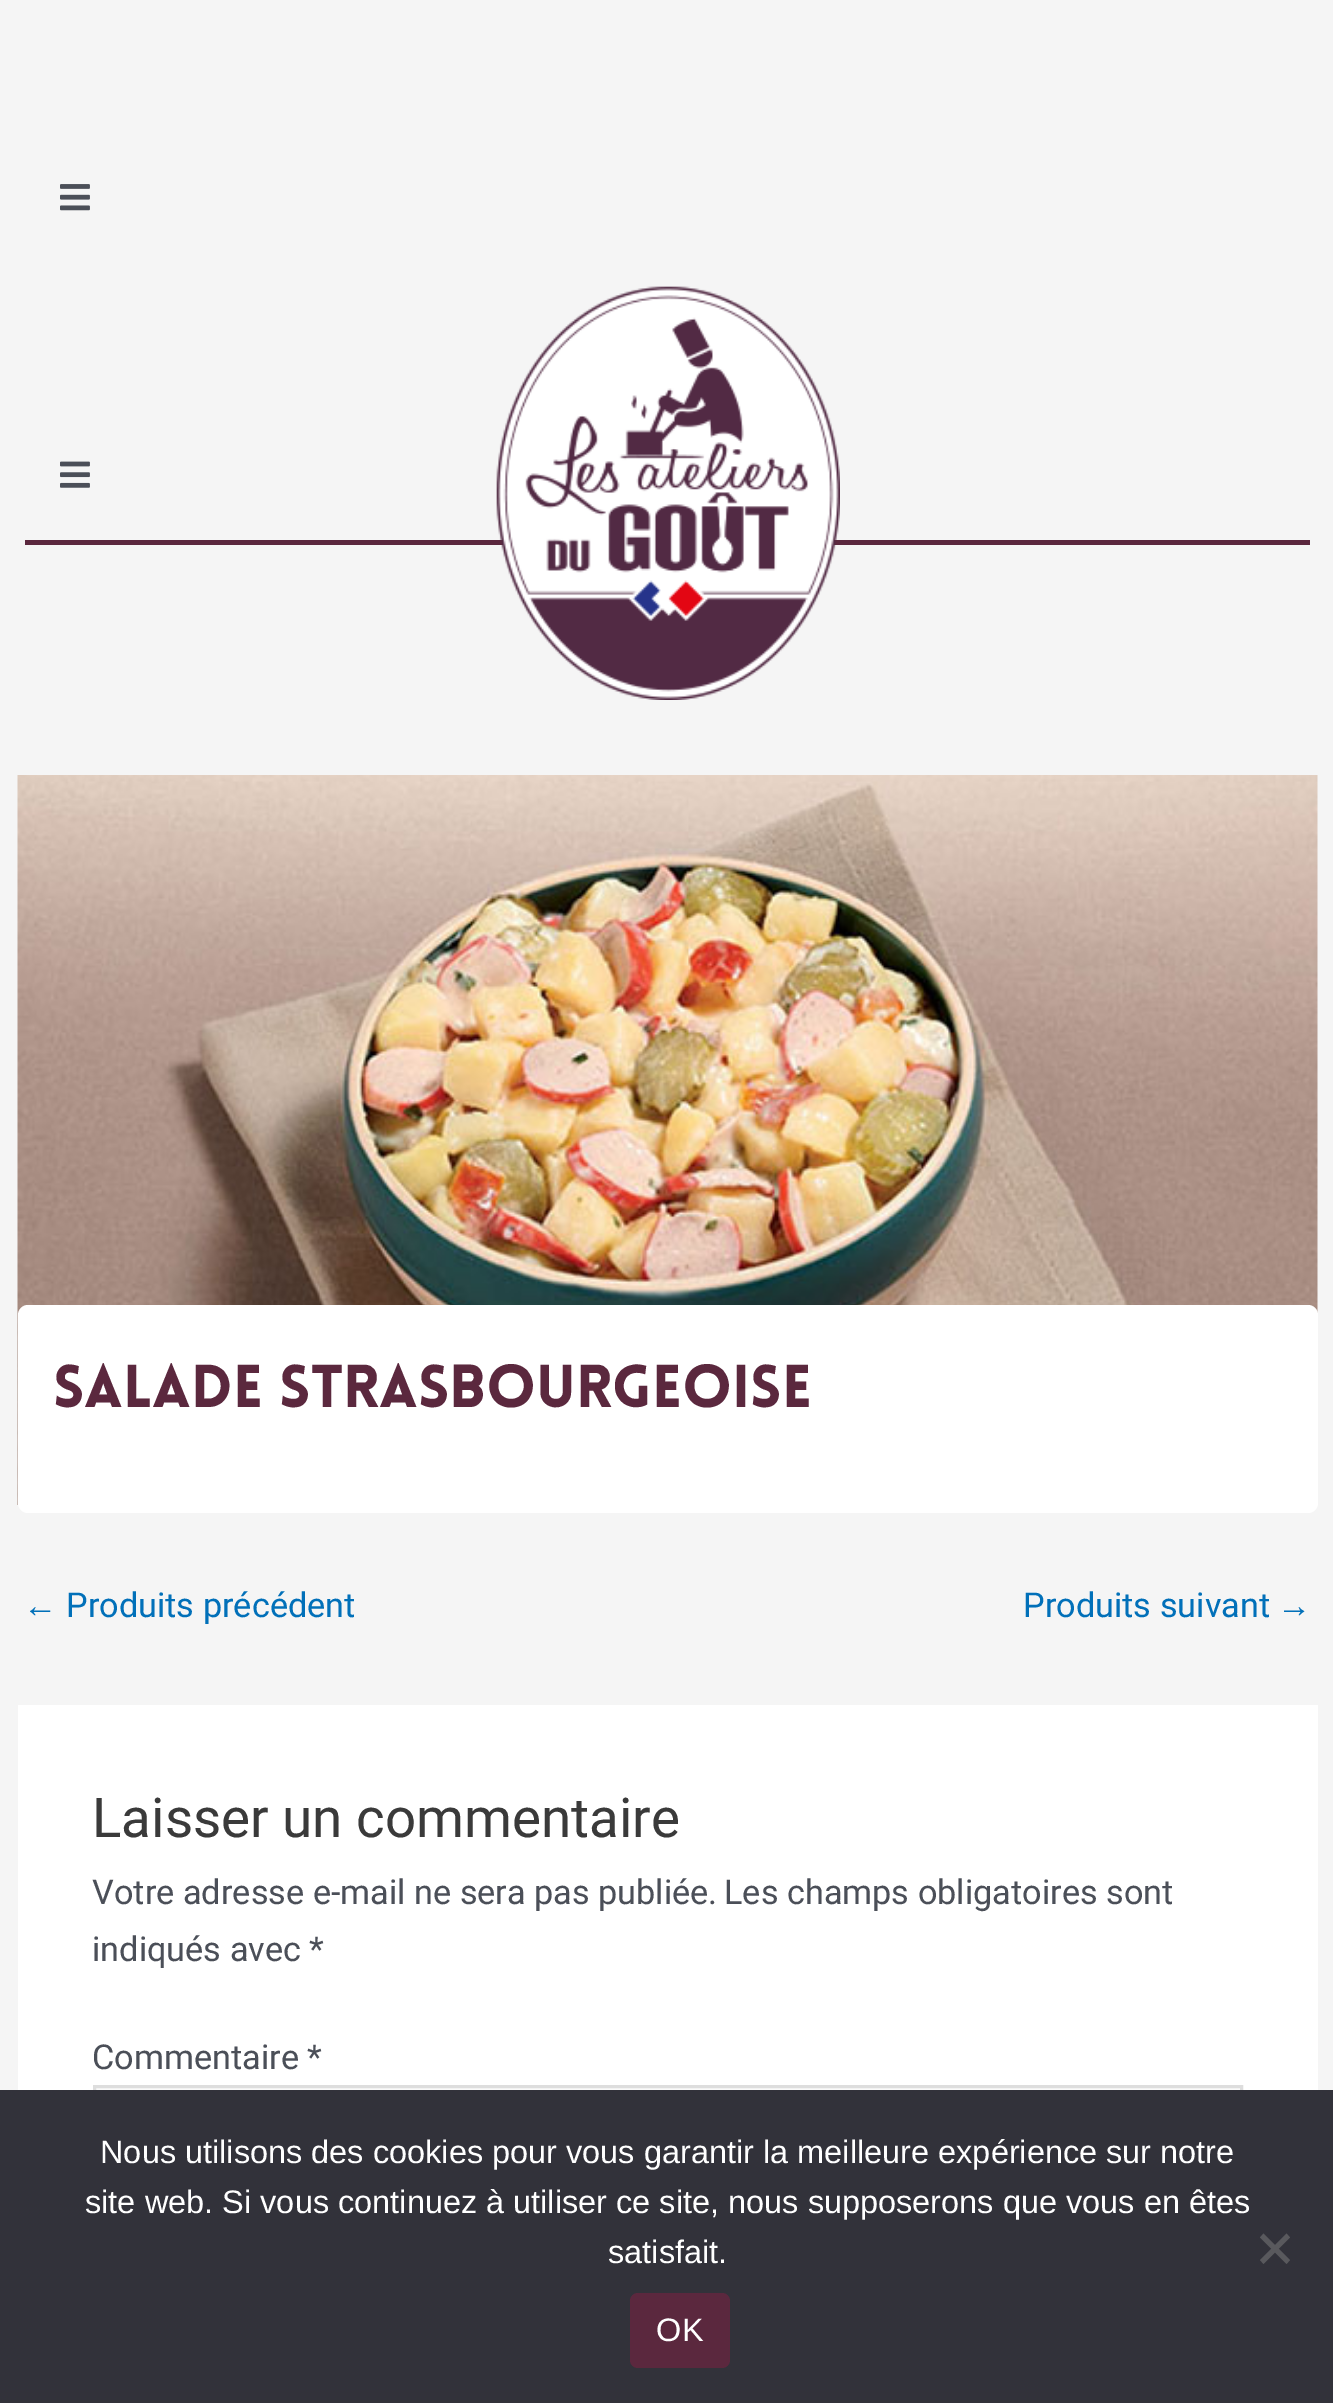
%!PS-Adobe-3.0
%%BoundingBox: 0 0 1333 2403
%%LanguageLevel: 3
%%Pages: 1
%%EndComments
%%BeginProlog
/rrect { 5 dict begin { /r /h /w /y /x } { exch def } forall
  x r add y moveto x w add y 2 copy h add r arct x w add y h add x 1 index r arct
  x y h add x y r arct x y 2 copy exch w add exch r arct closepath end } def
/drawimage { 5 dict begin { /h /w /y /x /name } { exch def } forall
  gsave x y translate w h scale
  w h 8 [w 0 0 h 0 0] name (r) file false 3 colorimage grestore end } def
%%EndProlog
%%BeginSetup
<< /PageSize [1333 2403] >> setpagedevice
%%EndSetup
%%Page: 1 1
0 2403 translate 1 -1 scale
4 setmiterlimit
0.961 setgray
0 0 1333 2403 rectfill
(images/1.raw) 60 184 30 27 drawimage
(images/2.raw) 60 461 30 27 drawimage
0.357 0.157 0.243 setrgbcolor
25 540 1285 5 rectfill
(images/3.raw) 496 286 344 414 drawimage
(images/4.raw) 17 775 1301 730 drawimage
1 setgray
18 1305 1300 208 10 rrect fill
18 1705 1300 385 rectfill
0.98 setgray
96 2088 1144 2 rectfill
0.867 setgray
3 setlinewidth
94.5 2086.5 1147 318 rectstroke
0.196 0.196 0.227 setrgbcolor
0 2090 1333 313 rectfill
0.349 0.349 0.365 setrgbcolor
newpath 1286.5 2233.5 moveto 1290 2237.5 lineto 1263.5 2264 lineto 1260 2260 lineto closepath fill
newpath 1260 2237.5 moveto 1263.5 2233.5 lineto 1290 2260 lineto 1286.5 2264 lineto closepath fill
0.357 0.157 0.243 setrgbcolor
630 2293 100 75 8 rrect fill
/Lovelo-Black [59.25 0 0 -59.25 0 0] selectfont
53 1407 moveto (Salade strasbourgeoise) show
/LiberationSans-Regular [34.25 0 0 -34.25 0 0] selectfont
0.004 0.439 0.725 setrgbcolor
23 1617 moveto (←) show
/Roboto-Regular [34.25 0 0 -34.25 0 0] selectfont
66 1617 moveto (Produits précédent) show
1023 1617 moveto (Produits suivant) show
/LiberationSans-Regular [34.25 0 0 -34.25 0 0] selectfont
1277 1617 moveto (→) show
/Roboto-Regular [54.75 0 0 -54.75 0 0] selectfont
0.227 setgray
92 1837 moveto (Laisser un commentaire) show
/Roboto-Regular [34.25 0 0 -34.25 0 0] selectfont
0.294 0.31 0.345 setrgbcolor
92 1904 moveto (Votre adresse e-mail ne sera pas publiée.) show
724 1904 moveto (Les champs obligatoires sont) show
92 1961 moveto (indiqués avec *) show
92 2069 moveto (Commentaire *) show
/LiberationSans-Regular [32.5 0 0 -32.5 0 0] selectfont
1 setgray
100 2163 moveto (Nous utilisons des cookies pour vous garantir la meilleure expérience sur notre) show
85 2213 moveto (site web. Si vous continuez à utiliser ce site, nous supposerons que vous en êtes) show
608 2263 moveto (satisfait.) show
656 2341 moveto 1 0 (OK) ashow
showpage
%%EOF
